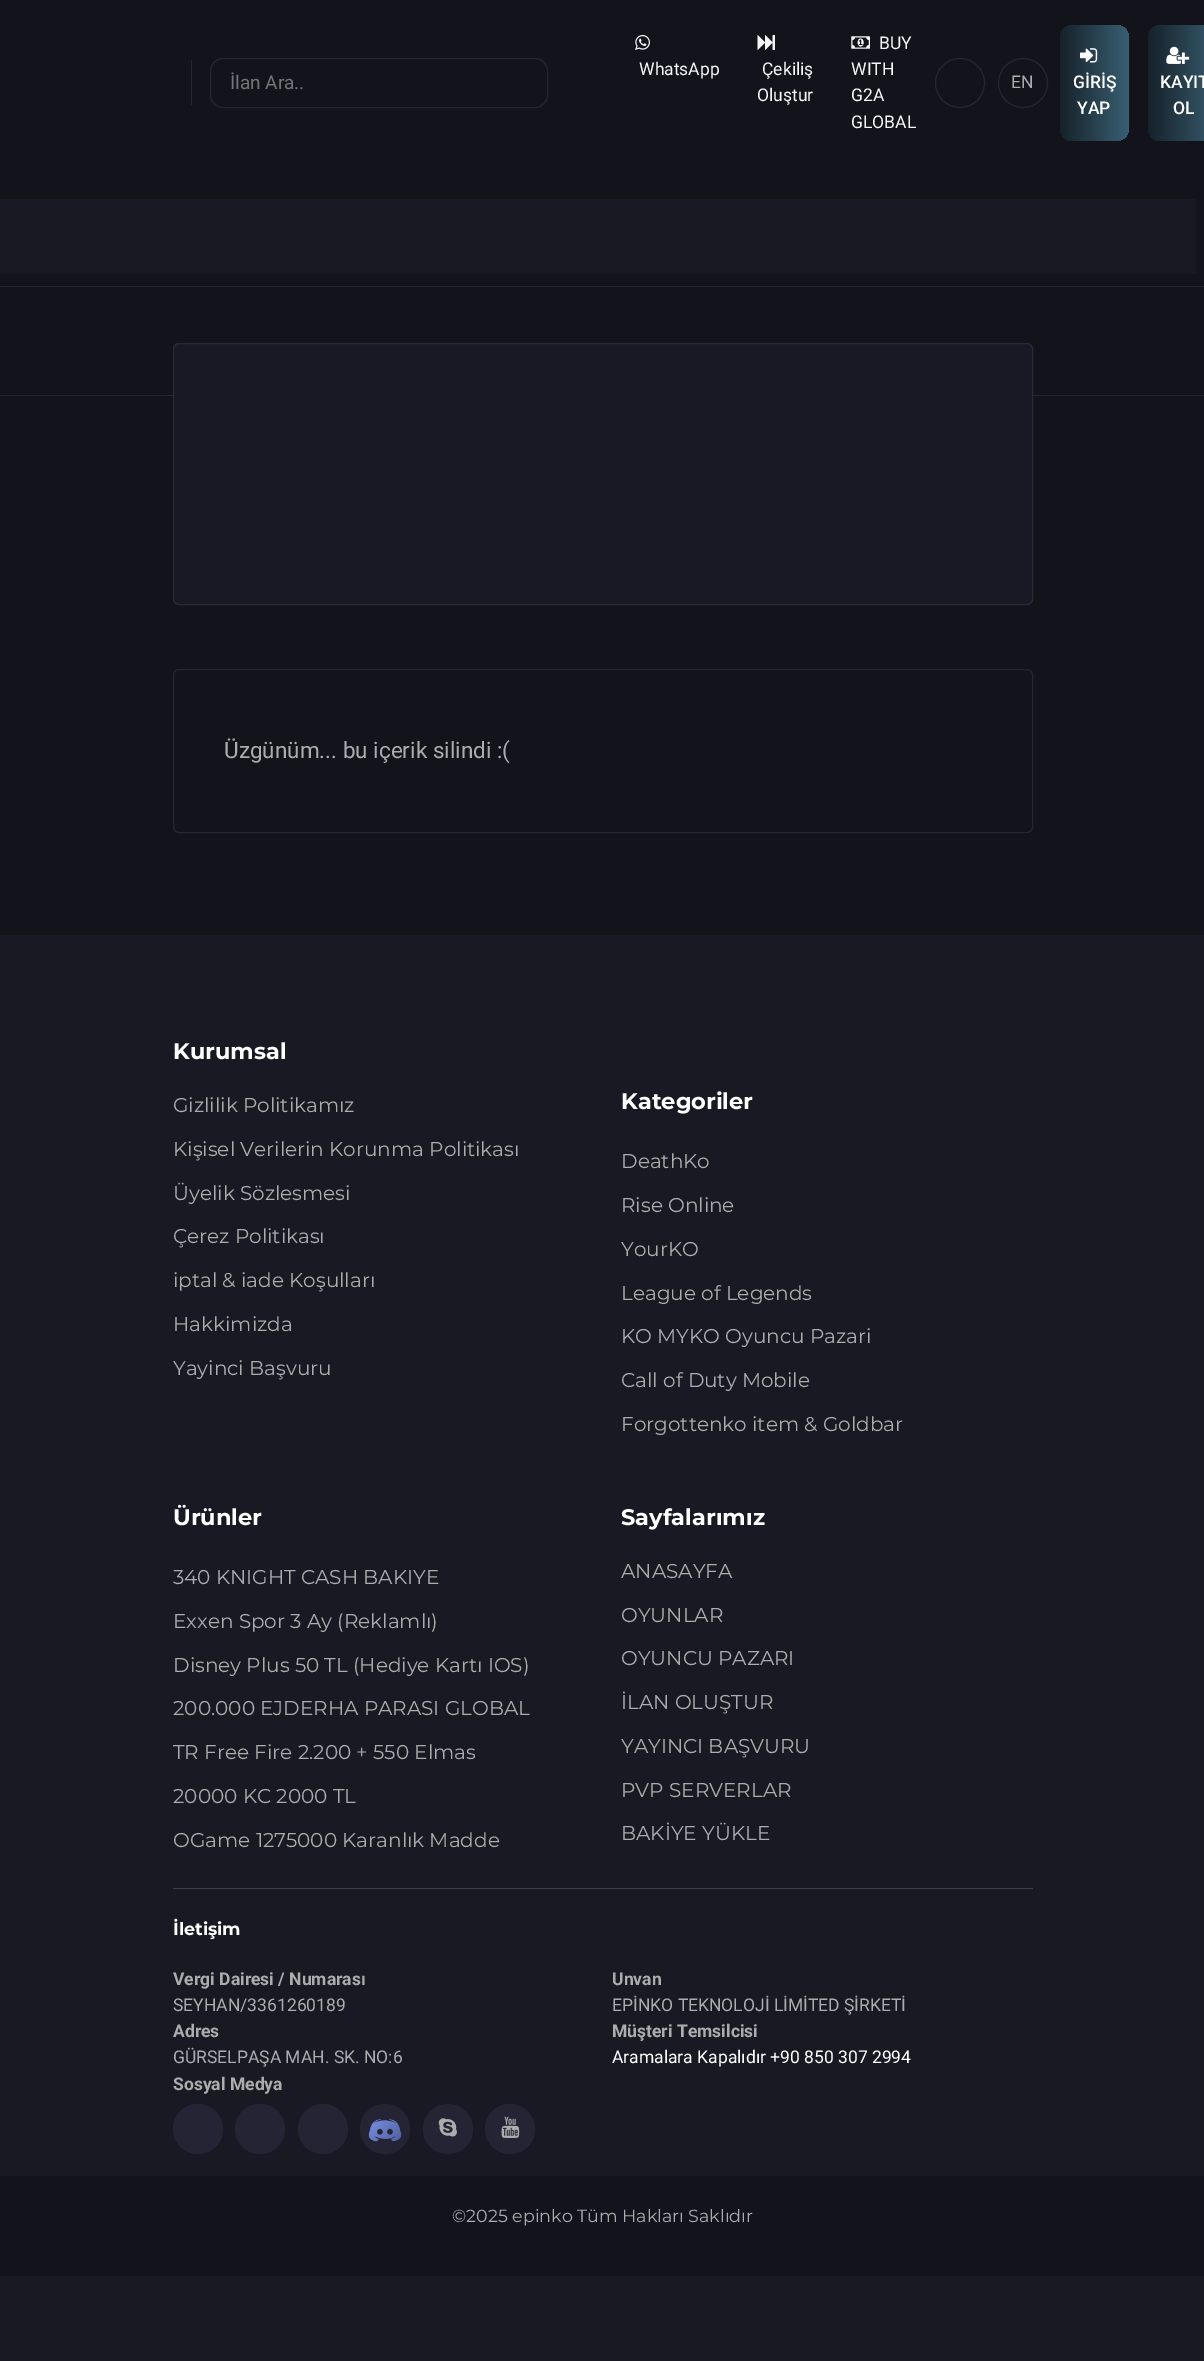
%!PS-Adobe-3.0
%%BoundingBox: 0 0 1204 2361
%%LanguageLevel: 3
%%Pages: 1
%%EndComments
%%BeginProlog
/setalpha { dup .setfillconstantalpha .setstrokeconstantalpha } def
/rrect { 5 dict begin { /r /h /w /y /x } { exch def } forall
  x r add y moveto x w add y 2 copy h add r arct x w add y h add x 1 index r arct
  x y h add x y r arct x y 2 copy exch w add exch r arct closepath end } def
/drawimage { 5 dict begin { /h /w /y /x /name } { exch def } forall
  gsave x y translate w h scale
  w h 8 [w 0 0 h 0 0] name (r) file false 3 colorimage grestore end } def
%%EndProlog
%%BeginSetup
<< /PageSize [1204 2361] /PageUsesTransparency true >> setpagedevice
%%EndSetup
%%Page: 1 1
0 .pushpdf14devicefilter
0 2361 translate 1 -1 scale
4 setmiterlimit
0.075 0.075 0.106 setrgbcolor
0 0 1204 2361 rectfill
0.149 0.149 0.176 setrgbcolor
0 286 1204 1 rectfill
191 60 1 45 rectfill
210.5 58.5 337 49 12.5 rrect stroke
(images/1.raw) 635 34 15 16 drawimage
(images/2.raw) 757 35 18 15 drawimage
(images/3.raw) 851 36 19 13 drawimage
newpath 960 83 24.5 0 360 arc closepath stroke
newpath 1023 83 24.5 0 360 arc closepath stroke
gsave 1060 25 69 116 13 rrect clip newpath
<< /ShadingType 2 /ColorSpace /DeviceRGB /Coords [1060 83 1198 83] /Extend [true true] /Function << /FunctionType 3 /Domain [0 1] /Functions [<< /FunctionType 2 /Domain [0 1] /C0 [0.086 0.133 0.165] /C1 [0.227 0.376 0.451] /N 1 >> << /FunctionType 2 /Domain [0 1] /C0 [0.227 0.376 0.451] /C1 [0.086 0.133 0.165] /N 1 >>] /Bounds [0.51] /Encode [0 1 0 1] >> >> shfill grestore
(images/4.raw) 1080 48 18 15 drawimage
gsave 1148 25 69 116 13 rrect clip newpath
<< /ShadingType 2 /ColorSpace /DeviceRGB /Coords [1148 83 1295 83] /Extend [true true] /Function << /FunctionType 3 /Domain [0 1] /Functions [<< /FunctionType 2 /Domain [0 1] /C0 [0.086 0.133 0.165] /C1 [0.227 0.376 0.451] /N 1 >> << /FunctionType 2 /Domain [0 1] /C0 [0.227 0.376 0.451] /C1 [0.086 0.133 0.165] /N 1 >>] /Bounds [0.51] /Encode [0 1 0 1] >> >> shfill grestore
(images/5.raw) 1166 46 24 18 drawimage
0.098 0.098 0.141 setrgbcolor
0 199 1196 75 rectfill
0.149 0.149 0.176 setrgbcolor
0 395 1204 1 rectfill
0.098 0.098 0.145 setrgbcolor
173 343 860 262 6 rrect fill
0.08 setalpha
1 setgray
173.5 343.5 859 261 5.5 rrect stroke
1 setalpha
0.149 0.149 0.176 setrgbcolor
173.5 669.5 859 163 5.5 rrect stroke
0.098 0.098 0.141 setrgbcolor
0 935 1204 1426 rectfill
0.243 0.243 0.275 setrgbcolor
173 1888 860 1 rectfill
0.141 0.141 0.208 setrgbcolor
newpath 198 2129 25 0 360 arc closepath fill
newpath 260 2129 25 0 360 arc closepath fill
newpath 323 2129 25 0 360 arc closepath fill
newpath 385 2129 25 0 360 arc closepath fill
(images/6.raw) 368 2119 34 23 drawimage
newpath 448 2129 25 0 360 arc closepath fill
(images/7.raw) 438 2118 19 19 drawimage
newpath 510 2129 25 0 360 arc closepath fill
(images/8.raw) 501 2116 19 22 drawimage
0.075 0.075 0.114 setrgbcolor
0 2176 1204 100 rectfill
/Roboto-Regular [19 0 0 -19 0 0] selectfont
0.459 setgray
230 89 moveto (İlan Ara..) show
/Roboto-Regular [17.5 0 0 -17.5 0 0] selectfont
0.965 setgray
639 75 moveto (WhatsApp) show
762 75 moveto (Çekiliş) show
757 101 moveto (Oluştur) show
879 49 moveto (BUY) show
851 75 moveto (WITH) show
851 101 moveto (G2A) show
851 128 moveto (GLOBAL) show
0.675 setgray
1011 88 moveto (EN) show
/Roboto-Medium [17.5 0 0 -17.5 0 0] selectfont
1 setgray
1073 88 moveto (GİRİŞ) show
1077 114 moveto (YAP) show
1160 88 moveto (KAYIT) show
1173 114 moveto (OL) show
/Roboto-Regular [22.5 0 0 -22.5 0 0] selectfont
0.675 setgray
224 758 moveto (Üzgünüm... bu içerik silindi :\() show
/Montserrat-Bold [22.5 0 0 -22.5 0 0] selectfont
1 setgray
173 1059 moveto (Kurumsal) show
/Montserrat-Regular [20 0 0 -20 0 0] selectfont
0.675 setgray
173 1112 moveto (Gizlilik Politikamız) show
173 1156 moveto (Kişisel Verilerin Korunma Politikası) show
173 1200 moveto (Üyelik Sözlesmesi) show
173 1243 moveto (Çerez Politikası) show
173 1287 moveto (iptal & iade Koşulları) show
173 1331 moveto (Hakkimizda) show
173 1375 moveto (Yayinci Başvuru) show
/Montserrat-Bold [22.5 0 0 -22.5 0 0] selectfont
1 setgray
621 1109 moveto (Kategoriler) show
/Montserrat-Regular [20 0 0 -20 0 0] selectfont
0.675 setgray
621 1168 moveto (DeathKo) show
621 1212 moveto (Rise Online) show
621 1256 moveto (YourKO) show
621 1300 moveto (League of Legends) show
621 1343 moveto (KO MYKO Oyuncu Pazari) show
621 1387 moveto (Call of Duty Mobile) show
621 1431 moveto (Forgottenko item & Goldbar) show
/Montserrat-Bold [22.5 0 0 -22.5 0 0] selectfont
1 setgray
173 1525 moveto (Ürünler) show
/Montserrat-Regular [20 0 0 -20 0 0] selectfont
0.675 setgray
173 1584 moveto (340 KNIGHT CASH BAKIYE) show
173 1628 moveto (Exxen Spor 3 Ay \(Reklamlı\)) show
173 1672 moveto (Disney Plus 50 TL \(Hediye Kartı IOS\)) show
173 1715 moveto (200.000 EJDERHA PARASI GLOBAL) show
173 1759 moveto (TR Free Fire 2.200 + 550 Elmas) show
173 1803 moveto (20000 KC 2000 TL) show
173 1847 moveto (OGame 1275000 Karanlık Madde) show
/Montserrat-Bold [22.5 0 0 -22.5 0 0] selectfont
1 setgray
621 1525 moveto (Sayfalarımız) show
/Montserrat-Regular [20 0 0 -20 0 0] selectfont
0.675 setgray
621 1578 moveto (ANASAYFA) show
621 1622 moveto (OYUNLAR) show
621 1665 moveto (OYUNCU PAZARI) show
621 1709 moveto (İLAN OLUŞTUR) show
621 1753 moveto (YAYINCI BAŞVURU) show
621 1797 moveto (PVP SERVERLAR) show
621 1840 moveto (BAKİYE YÜKLE) show
/Montserrat-Bold [17.5 0 0 -17.5 0 0] selectfont
1 setgray
173 1935 moveto (İletişim) show
/Roboto-Bold [17.5 0 0 -17.5 0 0] selectfont
0.675 setgray
173 1985 moveto (Vergi Dairesi / Numarası) show
/Roboto-Regular [17.5 0 0 -17.5 0 0] selectfont
173 2011 moveto (SEYHAN/3361260189) show
/Roboto-Bold [17.5 0 0 -17.5 0 0] selectfont
612 1985 moveto (Unvan) show
/Roboto-Regular [17.5 0 0 -17.5 0 0] selectfont
612 2011 moveto (EPİNKO TEKNOLOJİ LİMİTED ŞİRKETİ) show
/Roboto-Bold [17.5 0 0 -17.5 0 0] selectfont
173 2037 moveto (Adres) show
/Roboto-Regular [17.5 0 0 -17.5 0 0] selectfont
173 2063 moveto (GÜRSELPAŞA MAH. SK. NO:6) show
/Roboto-Bold [17.5 0 0 -17.5 0 0] selectfont
612 2037 moveto (Müşteri Temsilcisi) show
/Roboto-Regular [17.5 0 0 -17.5 0 0] selectfont
1 setgray
612 2063 moveto (Aramalara Kapalıdır +90 850 307 2994) show
/Roboto-Bold [17.5 0 0 -17.5 0 0] selectfont
0.675 setgray
173 2090 moveto (Sosyal Medya) show
/Montserrat-Regular [17.5 0 0 -17.5 0 0] selectfont
452 2222 moveto (©2025 epinko Tüm Hakları Saklıdır) show
.poppdf14devicefilter showpage
%%EOF
